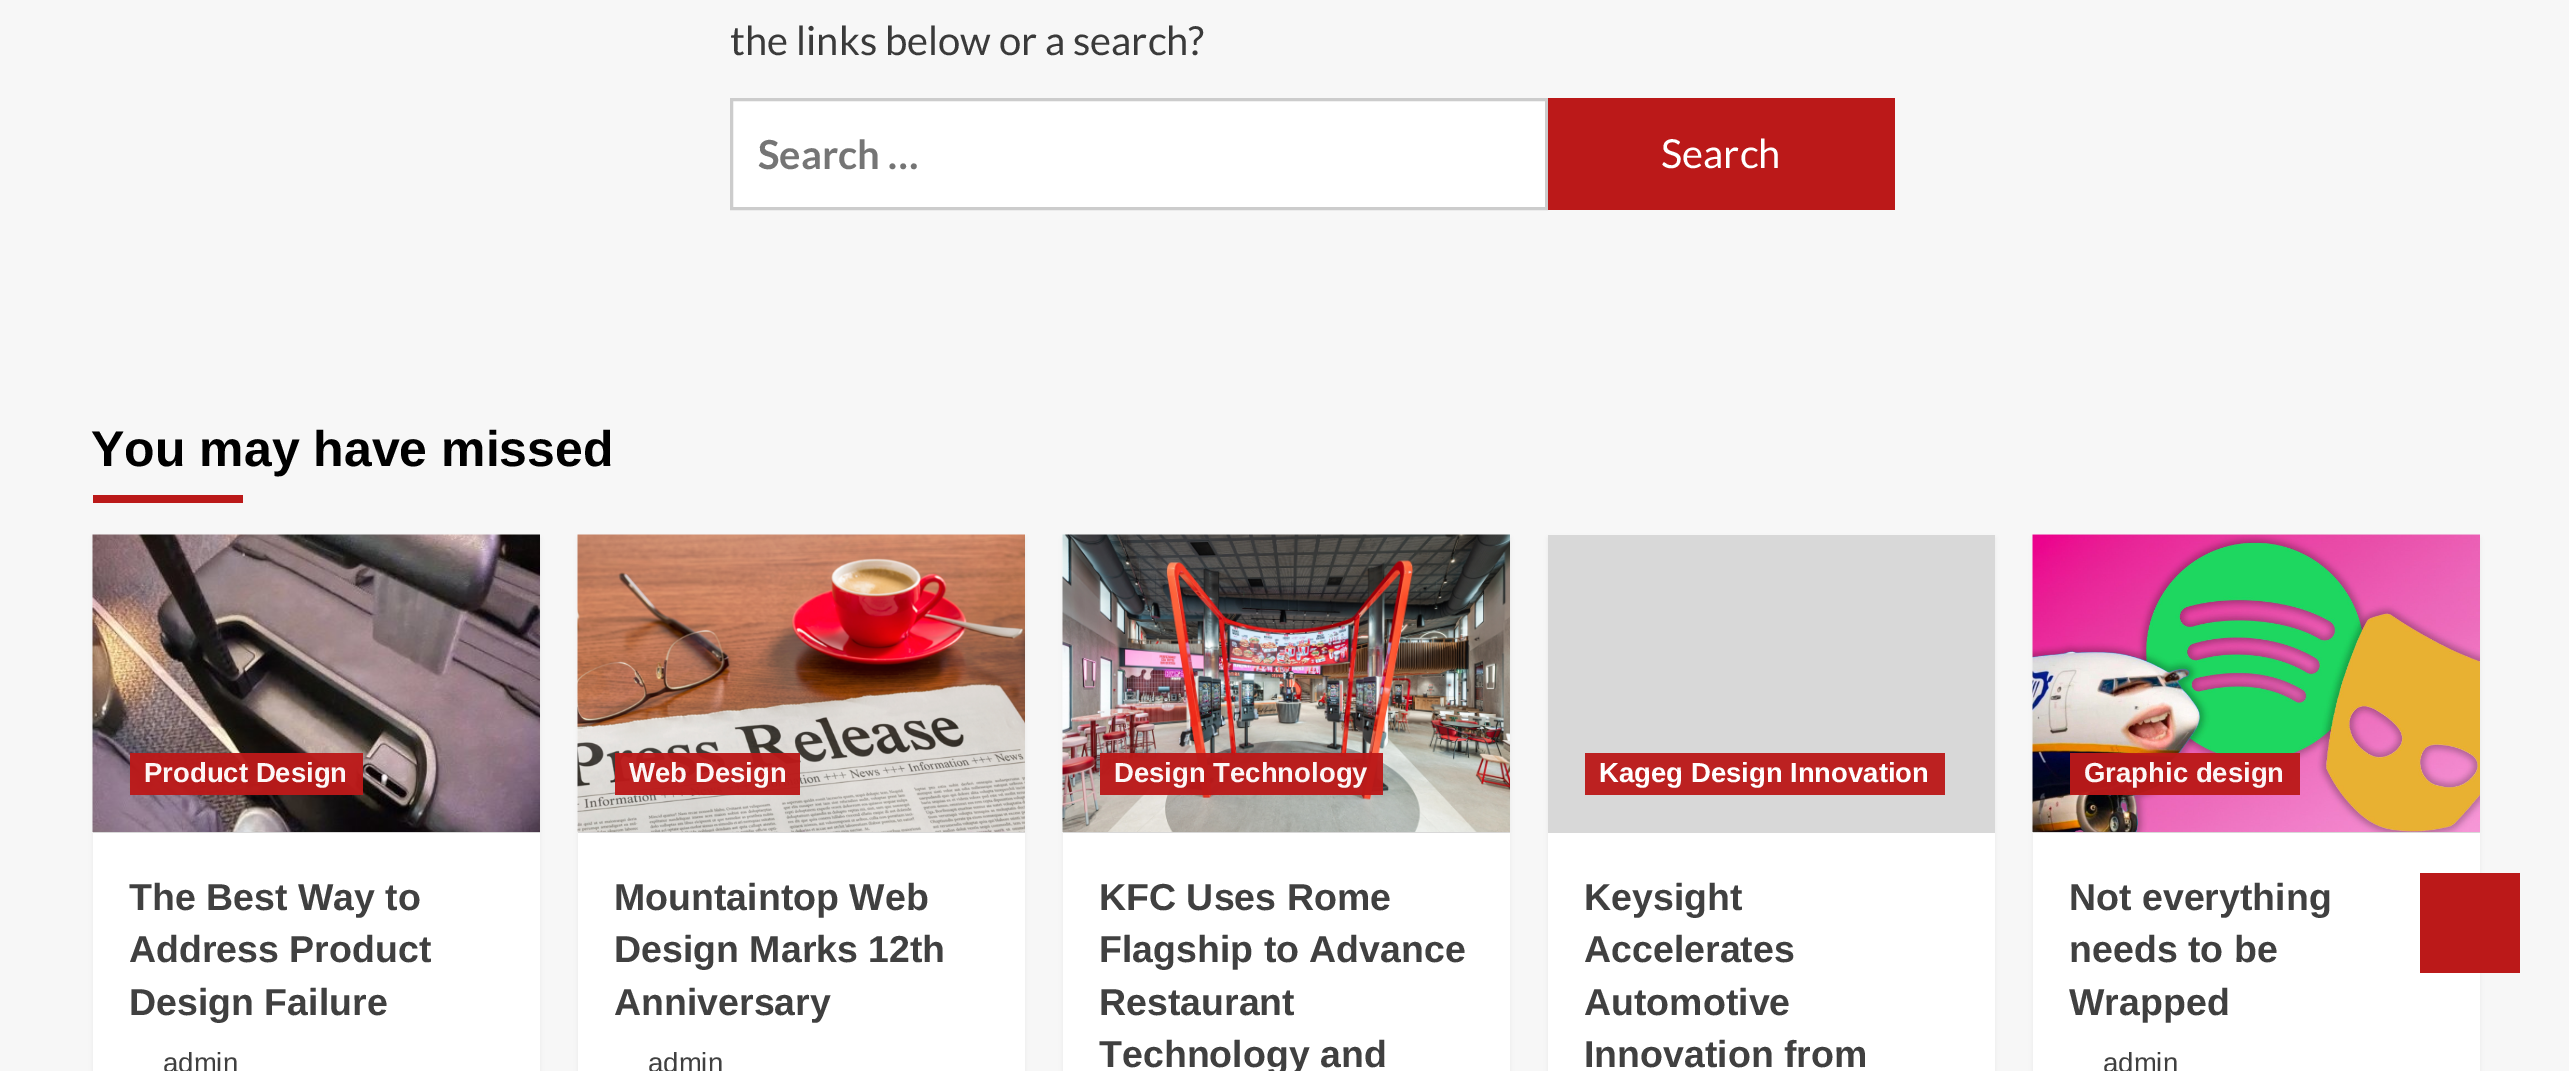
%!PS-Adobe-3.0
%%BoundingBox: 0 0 2569 1071
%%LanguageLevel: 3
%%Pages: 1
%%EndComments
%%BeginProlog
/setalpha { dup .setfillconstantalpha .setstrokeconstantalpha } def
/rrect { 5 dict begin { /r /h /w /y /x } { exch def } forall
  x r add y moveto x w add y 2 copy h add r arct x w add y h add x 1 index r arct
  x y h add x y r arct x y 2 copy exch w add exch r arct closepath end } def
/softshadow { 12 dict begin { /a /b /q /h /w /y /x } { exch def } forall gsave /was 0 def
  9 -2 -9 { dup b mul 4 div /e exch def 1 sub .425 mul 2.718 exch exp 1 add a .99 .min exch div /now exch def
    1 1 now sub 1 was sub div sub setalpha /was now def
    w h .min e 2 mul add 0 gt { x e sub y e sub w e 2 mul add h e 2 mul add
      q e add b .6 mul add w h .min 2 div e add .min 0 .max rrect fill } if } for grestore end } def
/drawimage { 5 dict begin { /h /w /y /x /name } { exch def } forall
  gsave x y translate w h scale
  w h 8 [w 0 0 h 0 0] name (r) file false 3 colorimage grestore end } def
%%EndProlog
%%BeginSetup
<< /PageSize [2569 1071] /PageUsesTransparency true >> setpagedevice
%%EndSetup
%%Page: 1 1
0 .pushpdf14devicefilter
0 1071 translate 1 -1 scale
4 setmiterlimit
0.969 setgray
0 0 2569 1071 rectfill
1 setgray
newpath 731.5 99.5 moveto 1546.5 99.5 lineto 1546.5 208.5 lineto 731.5 208.5 lineto closepath gsave fill grestore
0.8 setgray
3 setlinewidth
stroke
0.733 0.098 0.098 setrgbcolor
1548 98 347 112 rectfill
93 495 150 8 rectfill
0 setgray
93 538 447 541 0 2.5 0.05 softshadow
1 setgray
93 833 447 238 rectfill
0.847 setgray
93 832 447 1 rectfill
(images/1.raw) 92 534 448 298 drawimage
0.96 setalpha
0.733 0.098 0.098 setrgbcolor
130 753 233 42 rectfill
1 setalpha
0 setgray
578 538 447 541 0 2.5 0.05 softshadow
1 setgray
578 833 447 238 rectfill
0.847 setgray
578 832 447 1 rectfill
(images/2.raw) 577 534 448 298 drawimage
0.96 setalpha
0.733 0.098 0.098 setrgbcolor
615 753 185 42 rectfill
1 setalpha
0 setgray
1063 538 447 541 0 2.5 0.05 softshadow
1 setgray
1063 833 447 238 rectfill
0.847 setgray
1063 832 447 1 rectfill
(images/3.raw) 1062 534 448 298 drawimage
0.96 setalpha
0.733 0.098 0.098 setrgbcolor
1100 753 283 42 rectfill
1 setalpha
0 setgray
1548 538 447 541 0 2.5 0.05 softshadow
1 setgray
1548 833 447 238 rectfill
0.847 setgray
1548 535 447 298 rectfill
0.737 0.129 0.129 setrgbcolor
1585 753 360 42 rectfill
0 setgray
2033 538 447 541 0 2.5 0.05 softshadow
1 setgray
2033 833 447 238 rectfill
0.847 setgray
2033 832 447 1 rectfill
(images/4.raw) 2032 534 448 298 drawimage
0.96 setalpha
0.733 0.098 0.098 setrgbcolor
2070 753 230 42 rectfill
1 setalpha
2420 873 100 100 rectfill
/Lato-Regular [40 0 0 -40 0 0] selectfont
0.227 setgray
730 55 moveto (the links below or a search?) show
/Lato-Bold [40 0 0 -40 0 0] selectfont
0.459 setgray
758 169 moveto (Search …) show
/Lato-Regular [40 0 0 -40 0 0] selectfont
1 setgray
1661 168 moveto (Search) show
/LiberationSans-Bold [50 0 0 -50 0 0] selectfont
0 setgray
91 466 moveto (You may have missed) show
/LiberationSans-Bold [27.5 0 0 -27.5 0 0] selectfont
0.988 0.965 0.965 setrgbcolor
144 782 moveto (Product Design) show
/LiberationSans-Bold [37.5 0 0 -37.5 0 0] selectfont
0.251 setgray
129 910 moveto (The Best Way to) show
129 962 moveto (Address Product) show
129 1015 moveto (Design Failure) show
/LiberationSans-Regular [27.5 0 0 -27.5 0 0] selectfont
163 1072 moveto (admin) show
/LiberationSans-Bold [27.5 0 0 -27.5 0 0] selectfont
0.988 0.965 0.965 setrgbcolor
629 782 moveto (Web Design) show
/LiberationSans-Bold [37.5 0 0 -37.5 0 0] selectfont
0.251 setgray
614 910 moveto (Mountaintop Web) show
614 962 moveto (Design Marks 12th) show
614 1015 moveto (Anniversary) show
/LiberationSans-Regular [27.5 0 0 -27.5 0 0] selectfont
648 1072 moveto (admin) show
/LiberationSans-Bold [27.5 0 0 -27.5 0 0] selectfont
0.988 0.965 0.965 setrgbcolor
1114 782 moveto (Design Technology) show
/LiberationSans-Bold [37.5 0 0 -37.5 0 0] selectfont
0.251 setgray
1099 910 moveto (KFC Uses Rome) show
1099 962 moveto (Flagship to Advance) show
1099 1015 moveto (Restaurant) show
1099 1067 moveto (Technology and) show
/LiberationSans-Bold [27.5 0 0 -27.5 0 0] selectfont
1 setgray
1599 782 moveto (Kageg Design Innovation) show
/LiberationSans-Bold [37.5 0 0 -37.5 0 0] selectfont
0.251 setgray
1584 910 moveto (Keysight) show
1584 962 moveto (Accelerates) show
1584 1015 moveto (Automotive) show
1584 1067 moveto (Innovation from) show
/LiberationSans-Bold [27.5 0 0 -27.5 0 0] selectfont
0.988 0.965 0.965 setrgbcolor
2084 782 moveto (Graphic design) show
/LiberationSans-Bold [37.5 0 0 -37.5 0 0] selectfont
0.251 setgray
2069 910 moveto (Not everything) show
2069 962 moveto (needs to be) show
2069 1015 moveto (Wrapped) show
/LiberationSans-Regular [27.5 0 0 -27.5 0 0] selectfont
2103 1072 moveto (admin) show
.poppdf14devicefilter showpage
%%EOF
